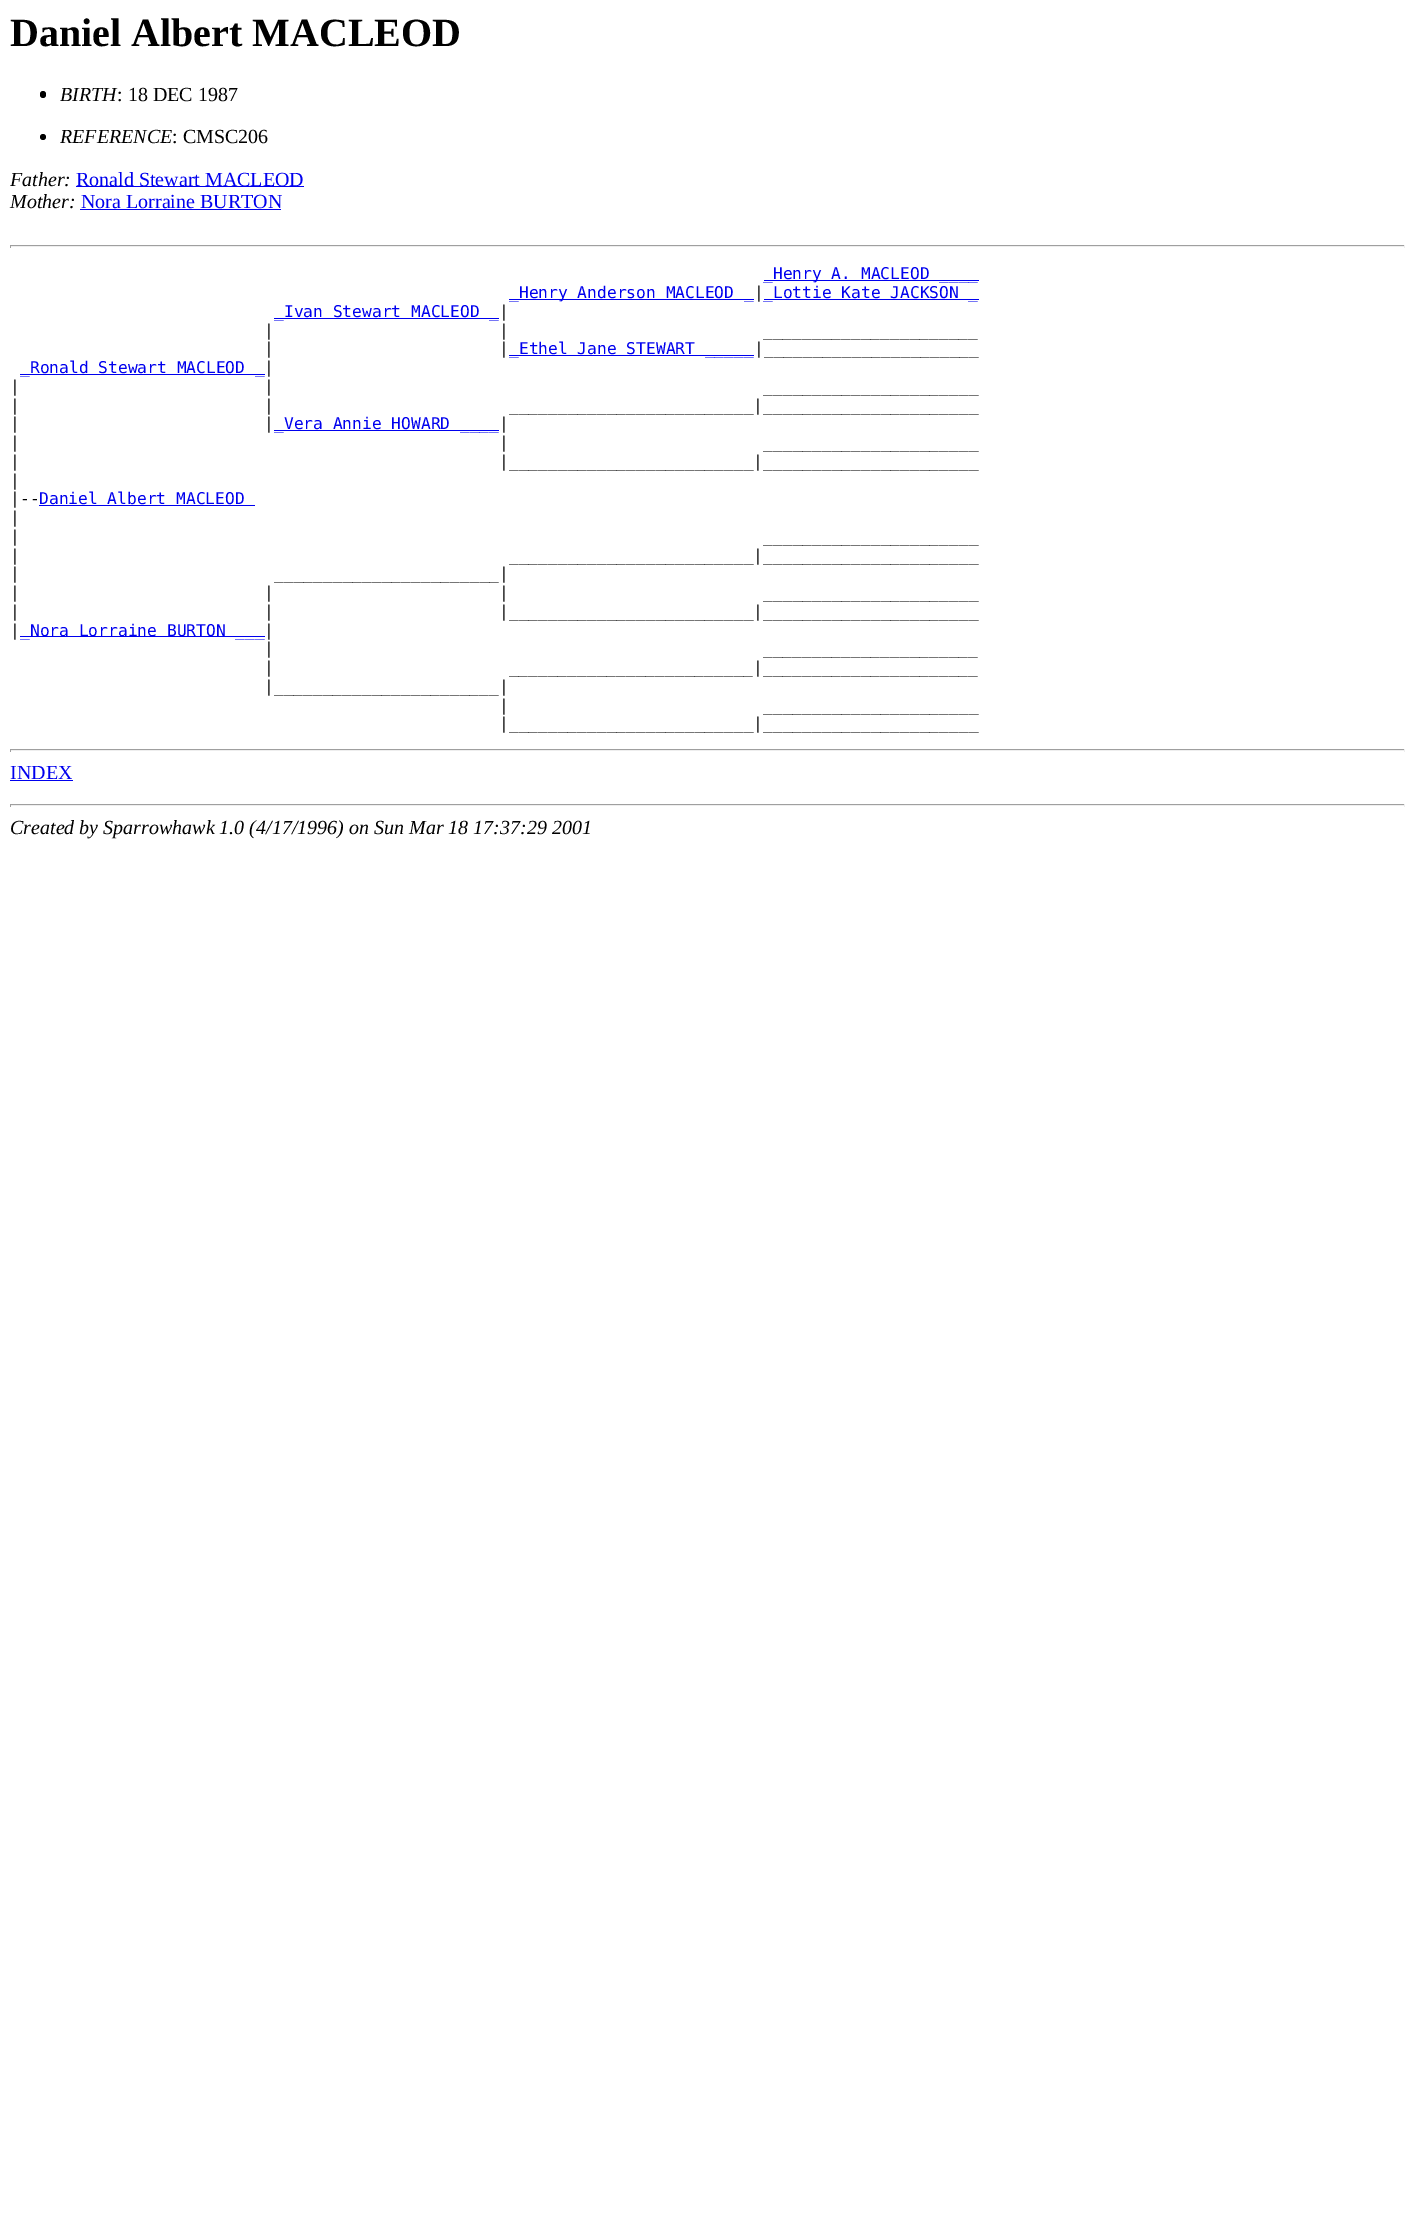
%!PS-Adobe-3.0
%%BoundingBox: 0 0 1414 2235
%%LanguageLevel: 3
%%Pages: 1
%%EndComments
%%BeginProlog
/rrect { 5 dict begin { /r /h /w /y /x } { exch def } forall
  x r add y moveto x w add y 2 copy h add r arct x w add y h add x 1 index r arct
  x y h add x y r arct x y 2 copy exch w add exch r arct closepath end } def
%%EndProlog
%%BeginSetup
<< /PageSize [1414 2235] >> setpagedevice
%%EndSetup
%%Page: 1 1
0 2235 translate 1 -1 scale
4 setmiterlimit
1 setgray
0 0 1414 2235 rectfill
0 setgray
40 91 6 7 3 rrect fill
newpath 43 137 3 0 360 arc closepath fill
0 0 0.933 setrgbcolor
76 186 228 1 rectfill
80 209 201 1 rectfill
0.624 setgray
10 245 1395 1 rectfill
0.933 setgray
1404 245 1 3 rectfill
10 246 1395 1 rectfill
0.624 setgray
10 245 1 3 rectfill
0 0 0.933 setrgbcolor
764 280 215 1 rectfill
509 299 245 1 rectfill
764 299 215 1 rectfill
274 318 225 1 rectfill
509 355 245 1 rectfill
20 374 245 1 rectfill
274 430 225 1 rectfill
39 505 216 1 rectfill
20 636 245 1 rectfill
0.624 setgray
10 749 1395 1 rectfill
0.933 setgray
1404 749 1 3 rectfill
10 750 1395 1 rectfill
0.624 setgray
10 749 1 3 rectfill
0 0 0.933 setrgbcolor
10 780 63 1 rectfill
0.624 setgray
10 804 1395 1 rectfill
0.933 setgray
1404 804 1 3 rectfill
10 805 1395 1 rectfill
0.624 setgray
10 804 1 3 rectfill
/LiberationSerif-Bold [40 0 0 -40 0 0] selectfont
0 setgray
10 46 moveto (Daniel Albert MACLEOD) show
/LiberationSerif-Italic [20 0 0 -20 0 0] selectfont
60 101 moveto (BIRTH) show
/LiberationSerif-Regular [20 0 0 -20 0 0] selectfont
117 101 moveto (: 18 DEC 1987) show
/LiberationSerif-Italic [20 0 0 -20 0 0] selectfont
60 143 moveto (REFERENCE) show
/LiberationSerif-Regular [20 0 0 -20 0 0] selectfont
172 143 moveto (: CMSC206) show
/LiberationSerif-Italic [20 0 0 -20 0 0] selectfont
10 186 moveto (Father:) show
/LiberationSerif-Regular [20 0 0 -20 0 0] selectfont
0 0 0.933 setrgbcolor
76 186 moveto (Ronald Stewart MACLEOD) show
/LiberationSerif-Italic [20 0 0 -20 0 0] selectfont
0 setgray
10 208 moveto (Mother:) show
/LiberationSerif-Regular [20 0 0 -20 0 0] selectfont
0 0 0.933 setrgbcolor
81 208 moveto (Nora Lorraine BURTON) show
/DejaVuSansMono-Regular [16.25 0 0 -16.25 0 0] selectfont
763 279 moveto (_Henry A. MACLEOD ____) show
509 298 moveto (_Henry Anderson MACLEOD _) show
0 setgray
754 298 moveto (|) show
0 0 0.933 setrgbcolor
763 298 moveto (_Lottie Kate JACKSON _) show
274 317 moveto (_Ivan Stewart MACLEOD _) show
0 setgray
499 317 moveto (|) show
264 336 moveto (|                       |                          ______________________) show
264 354 moveto (|                       |) show
0 0 0.933 setrgbcolor
509 354 moveto (_Ethel Jane STEWART _____) show
0 setgray
754 354 moveto (|______________________) show
0 0 0.933 setrgbcolor
20 373 moveto (_Ronald Stewart MACLEOD _) show
0 setgray
264 373 moveto (|) show
10 392 moveto (|                         |                                                  ______________________) show
10 411 moveto (|                         |                        _________________________|______________________) show
10 429 moveto (|                         |) show
0 0 0.933 setrgbcolor
274 429 moveto (_Vera Annie HOWARD ____) show
0 setgray
499 429 moveto (|) show
10 448 moveto (|                                                 |                          ______________________) show
10 467 moveto (|                                                 |_________________________|______________________) show
10 486 moveto (|) show
10 504 moveto (|--) show
0 0 0.933 setrgbcolor
39 504 moveto (Daniel Albert MACLEOD) show
0 setgray
10 523 moveto (|) show
10 542 moveto (|                                                                            ______________________) show
10 561 moveto (|                                                  _________________________|______________________) show
10 579 moveto (|                          _______________________|) show
10 598 moveto (|                         |                       |                          ______________________) show
10 617 moveto (|                         |                       |_________________________|______________________) show
10 636 moveto (|) show
0 0 0.933 setrgbcolor
20 636 moveto (_Nora Lorraine BURTON ___) show
0 setgray
264 636 moveto (|) show
264 654 moveto (|                                                  ______________________) show
264 673 moveto (|                        _________________________|______________________) show
264 692 moveto (|_______________________|) show
499 711 moveto (|                          ______________________) show
499 729 moveto (|_________________________|______________________) show
/LiberationSerif-Regular [20 0 0 -20 0 0] selectfont
0 0 0.933 setrgbcolor
10 779 moveto (INDEX) show
/LiberationSerif-Italic [20 0 0 -20 0 0] selectfont
0 setgray
10 834 moveto (Created by Sparrowhawk 1.0 \(4/17/1996\) on Sun Mar 18 17:37:29 2001) show
showpage
%%EOF
